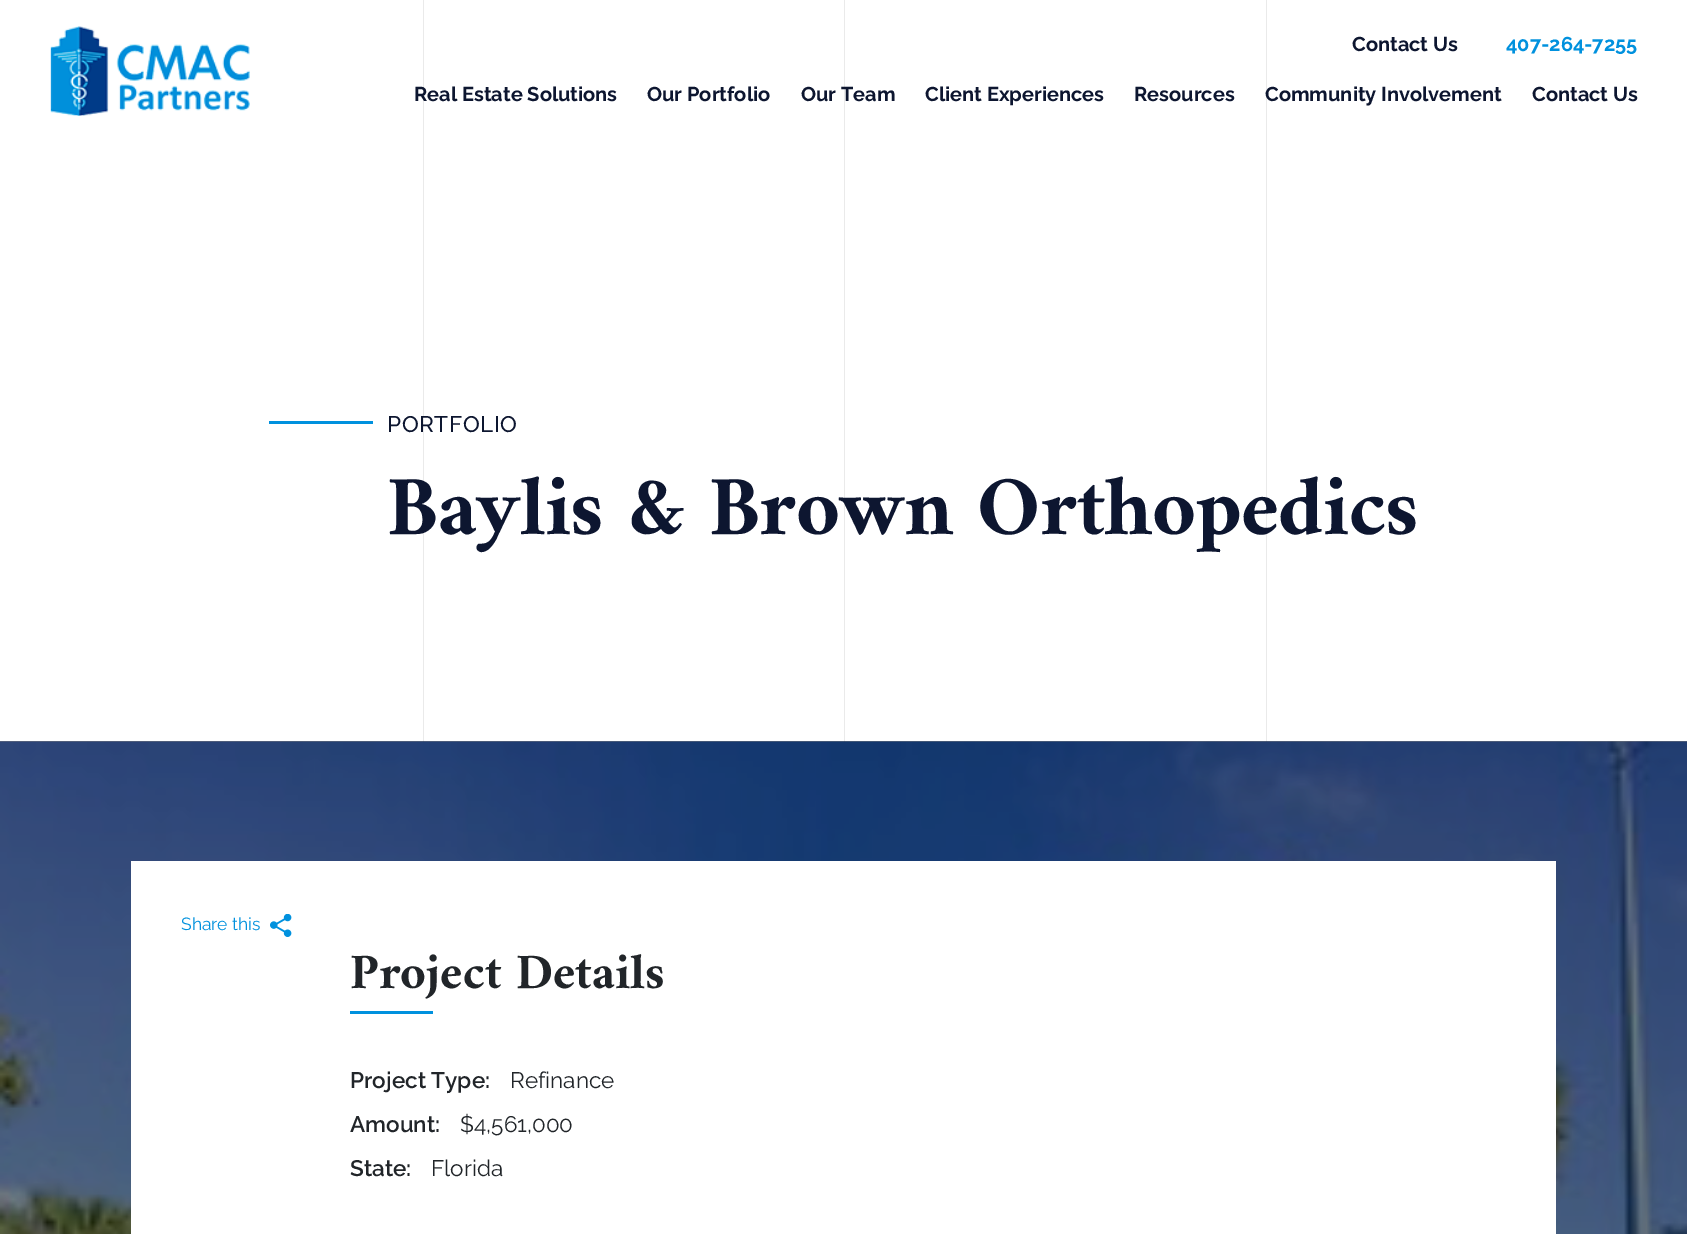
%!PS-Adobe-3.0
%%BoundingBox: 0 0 1687 1234
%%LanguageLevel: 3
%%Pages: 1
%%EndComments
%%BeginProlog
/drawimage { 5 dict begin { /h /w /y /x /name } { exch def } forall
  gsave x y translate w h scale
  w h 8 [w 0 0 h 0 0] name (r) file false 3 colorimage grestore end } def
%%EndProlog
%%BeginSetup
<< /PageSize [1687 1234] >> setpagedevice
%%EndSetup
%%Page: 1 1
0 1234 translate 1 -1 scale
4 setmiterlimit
1 setgray
0 0 1687 1234 rectfill
0.502 setgray
0 741 1687 1 rectfill
0.918 setgray
423 0 1 741 rectfill
0.459 setgray
423 741 1 1 rectfill
0.918 setgray
844 0 1 741 rectfill
0.459 setgray
844 741 1 1 rectfill
0.918 setgray
1266 0 1 741 rectfill
0.459 setgray
1266 741 1 1 rectfill
(images/1.raw) 50 26 200 90 drawimage
0 0.569 0.871 setrgbcolor
269 421 104 3 rectfill
(images/2.raw) 0 741 1687 493 drawimage
1 setgray
131 861 1425 373 rectfill
(images/3.raw) 270 914 22 23 drawimage
0 0.569 0.871 setrgbcolor
350 1011 83 3 rectfill
/Raleway-Bold [20 0 0 -20 0 0] selectfont
0.051 0.086 0.188 setrgbcolor
1352 51 moveto (Contact Us) show
0 0.569 0.871 setrgbcolor
1506 51 moveto (407-264-7255) show
0.051 0.086 0.188 setrgbcolor
414 101 moveto (Real Estate Solutions) show
647 101 moveto (Our Portfolio) show
801 101 moveto (Our Team) show
925 101 moveto (Client Experiences) show
1134 101 moveto (Resources) show
1265 101 moveto (Community Involvement) show
1532 101 moveto (Contact Us) show
/Raleway-Medium [22.5 0 0 -22.5 0 0] selectfont
387 432 moveto 0.6 0 (PORTFOLIO) ashow
/Amiri-Bold [85 0 0 -85 0 0] selectfont
387 534 moveto -0.6 0 (Baylis & Brown Orthopedics) ashow
/Raleway-Regular [17.5 0 0 -17.5 0 0] selectfont
0 0.569 0.871 setrgbcolor
181 930 moveto (Share this) show
/Amiri-Bold [50 0 0 -50 0 0] selectfont
0.129 0.145 0.161 setrgbcolor
350 988 moveto (Project Details) show
/Raleway-SemiBold [22.5 0 0 -22.5 0 0] selectfont
350 1088 moveto (Project Type:) show
/Raleway-Regular [22.5 0 0 -22.5 0 0] selectfont
510 1088 moveto (Refinance) show
/Raleway-SemiBold [22.5 0 0 -22.5 0 0] selectfont
350 1132 moveto (Amount:) show
/Raleway-Regular [22.5 0 0 -22.5 0 0] selectfont
460 1132 moveto ($4,561,000) show
/Raleway-SemiBold [22.5 0 0 -22.5 0 0] selectfont
350 1176 moveto (State:) show
/Raleway-Regular [22.5 0 0 -22.5 0 0] selectfont
431 1176 moveto (Florida) show
showpage
%%EOF
